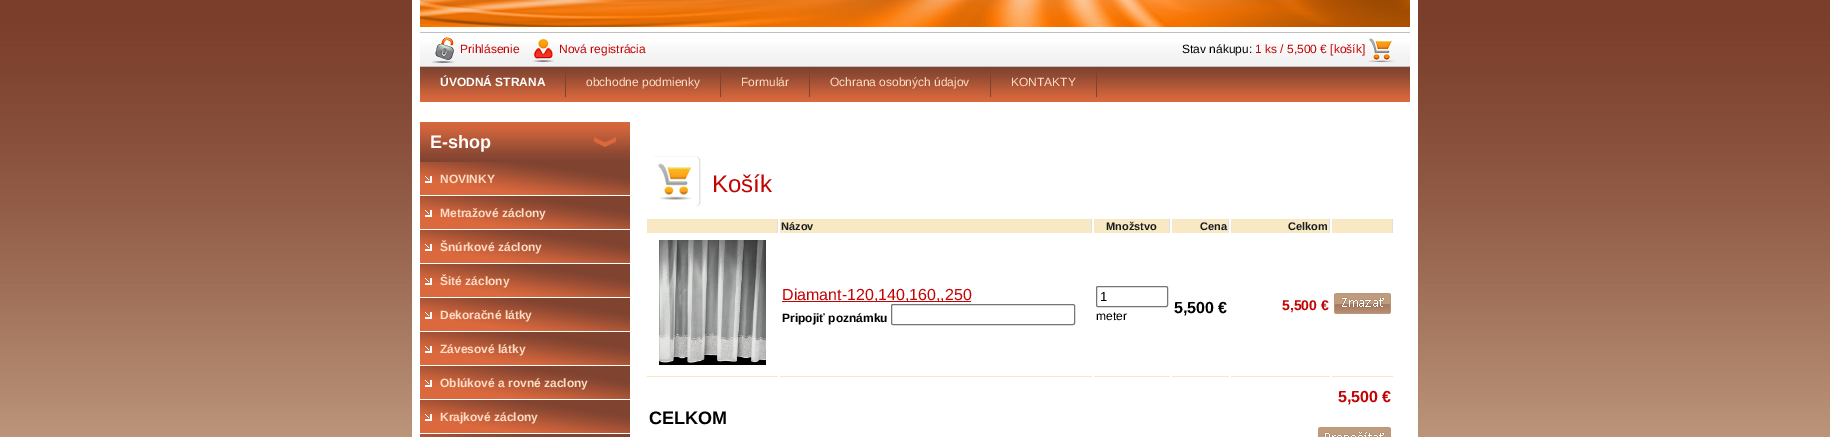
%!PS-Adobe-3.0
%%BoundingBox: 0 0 1830 437
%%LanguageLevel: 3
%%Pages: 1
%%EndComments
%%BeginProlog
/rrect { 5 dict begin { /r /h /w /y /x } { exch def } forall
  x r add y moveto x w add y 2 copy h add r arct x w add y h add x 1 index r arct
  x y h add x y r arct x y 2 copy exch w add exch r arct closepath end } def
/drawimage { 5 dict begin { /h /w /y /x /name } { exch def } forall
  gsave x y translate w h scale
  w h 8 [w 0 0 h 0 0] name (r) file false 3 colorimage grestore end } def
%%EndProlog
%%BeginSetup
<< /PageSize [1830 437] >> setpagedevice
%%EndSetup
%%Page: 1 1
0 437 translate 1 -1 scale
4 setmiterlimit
1 setgray
0 0 1830 437 rectfill
(images/1.raw) 0 0 1830 437 drawimage
412 0 1006 437 rectfill
(images/2.raw) 420 0 990 32 drawimage
0.753 setgray
420 32 990 35 rectfill
(images/3.raw) 420 33 990 33 drawimage
(images/4.raw) 432 37 23 26 drawimage
(images/5.raw) 532 39 22 23 drawimage
(images/6.raw) 1367 38 28 24 drawimage
(images/7.raw) 420 67 990 35 drawimage
0.498 0.263 0.188 setrgbcolor
565 67 1 30 rectfill
720 67 1 30 rectfill
809 67 1 30 rectfill
990 67 1 30 rectfill
1096 67 1 30 rectfill
(images/8.raw) 420 122 210 40 drawimage
(images/9.raw) 420 162 210 33 drawimage
(images/9.raw) 420 196 210 33 drawimage
(images/9.raw) 420 230 210 33 drawimage
(images/9.raw) 420 264 210 33 drawimage
(images/9.raw) 420 298 210 33 drawimage
(images/9.raw) 420 332 210 33 drawimage
(images/9.raw) 420 366 210 33 drawimage
(images/9.raw) 420 400 210 33 drawimage
(images/10.raw) 420 434 210 3 drawimage
(images/11.raw) 654 156 47 50 drawimage
0.973 0.914 0.769 setrgbcolor
647 219 130 14 rectfill
0.871 0.875 0.878 setrgbcolor
777 219 1 14 rectfill
0.973 0.914 0.769 setrgbcolor
780 219 311 14 rectfill
0.871 0.875 0.878 setrgbcolor
1091 219 1 14 rectfill
0.973 0.914 0.769 setrgbcolor
1094 219 75 14 rectfill
0.871 0.875 0.878 setrgbcolor
1169 219 1 14 rectfill
0.973 0.914 0.769 setrgbcolor
1172 219 56 14 rectfill
0.871 0.875 0.878 setrgbcolor
1228 219 1 14 rectfill
0.973 0.914 0.769 setrgbcolor
1231 219 98 14 rectfill
0.871 0.875 0.878 setrgbcolor
1329 219 1 14 rectfill
0.973 0.914 0.769 setrgbcolor
1332 219 60 14 rectfill
0.871 0.875 0.878 setrgbcolor
1392 219 1 14 rectfill
0.973 0.914 0.769 setrgbcolor
647 376 131 1 rectfill
(images/12.raw) 659 240 107 125 drawimage
780 376 312 1 rectfill
0.765 0.016 0.02 setrgbcolor
782 301 189 1 rectfill
0.463 setgray
891.5 304.5 183 20 1.5 rrect stroke
0.973 0.914 0.769 setrgbcolor
1094 376 76 1 rectfill
0.463 setgray
1096.5 286.5 71 20 1.5 rrect stroke
0.973 0.914 0.769 setrgbcolor
1172 376 57 1 rectfill
1231 376 99 1 rectfill
1332 376 61 1 rectfill
(images/13.raw) 1334 293 57 21 drawimage
(images/14.raw) 1318 427 73 10 drawimage
/LiberationSans-Regular [12 0 0 -12 0 0] selectfont
0.765 0.016 0.02 setrgbcolor
460 53 moveto (Prihlásenie) show
559 53 moveto (Nová registrácia) show
0 setgray
1182 53 moveto (Stav nákupu:) show
0.765 0.016 0.02 setrgbcolor
1255 53 moveto (1 ks / 5,500 € [košík]) show
/LiberationSans-Bold [12 0 0 -12 0 0] selectfont
1 setgray
440 86 moveto (ÚVODNÁ STRANA) show
/LiberationSans-Regular [12 0 0 -12 0 0] selectfont
0.996 0.867 0.78 setrgbcolor
586 86 moveto (obchodne podmienky) show
741 86 moveto (Formulár) show
830 86 moveto (Ochrana osobných údajov) show
1011 86 moveto (KONTAKTY) show
/LiberationSans-Bold [18 0 0 -18 0 0] selectfont
1 setgray
430 148 moveto (E-shop) show
/LiberationSans-Bold [12 0 0 -12 0 0] selectfont
0.996 0.867 0.78 setrgbcolor
440 183 moveto (NOVINKY) show
440 217 moveto (Metražové záclony) show
440 251 moveto (Šnúrkové záclony) show
440 285 moveto (Šité záclony) show
440 319 moveto (Dekoračné látky) show
440 353 moveto (Závesové látky) show
440 387 moveto (Oblúkové a rovné zaclony) show
440 421 moveto (Krajkové záclony) show
/LiberationSans-Regular [24 0 0 -24 0 0] selectfont
0.765 0.016 0.02 setrgbcolor
712 192 moveto (Košík) show
/LiberationSans-Bold [11 0 0 -11 0 0] selectfont
0.102 0.11 0.114 setrgbcolor
781 230 moveto (Názov) show
1106 230 moveto (Množstvo) show
1200 230 moveto (Cena) show
1288 230 moveto (Celkom) show
/LiberationSans-Regular [16 0 0 -16 0 0] selectfont
0.765 0.016 0.02 setrgbcolor
782 300 moveto (Diamant-120,140,160,,250) show
/LiberationSans-Bold [12 0 0 -12 0 0] selectfont
0 setgray
782 322 moveto (Pripojiť poznámku) show
/LiberationSans-Regular [13 0 0 -13 0 0] selectfont
1100 301 moveto (1) show
/LiberationSans-Regular [12 0 0 -12 0 0] selectfont
1096 320 moveto (meter) show
/LiberationSans-Bold [16 0 0 -16 0 0] selectfont
1174 313 moveto (5,500 €) show
/LiberationSans-Bold [14 0 0 -14 0 0] selectfont
0.765 0.016 0.02 setrgbcolor
1282 310 moveto (5,500 €) show
/LiberationSans-Bold [16 0 0 -16 0 0] selectfont
1338 402 moveto (5,500 €) show
/LiberationSans-Bold [18 0 0 -18 0 0] selectfont
0 setgray
649 424 moveto (CELKOM) show
showpage
%%EOF
